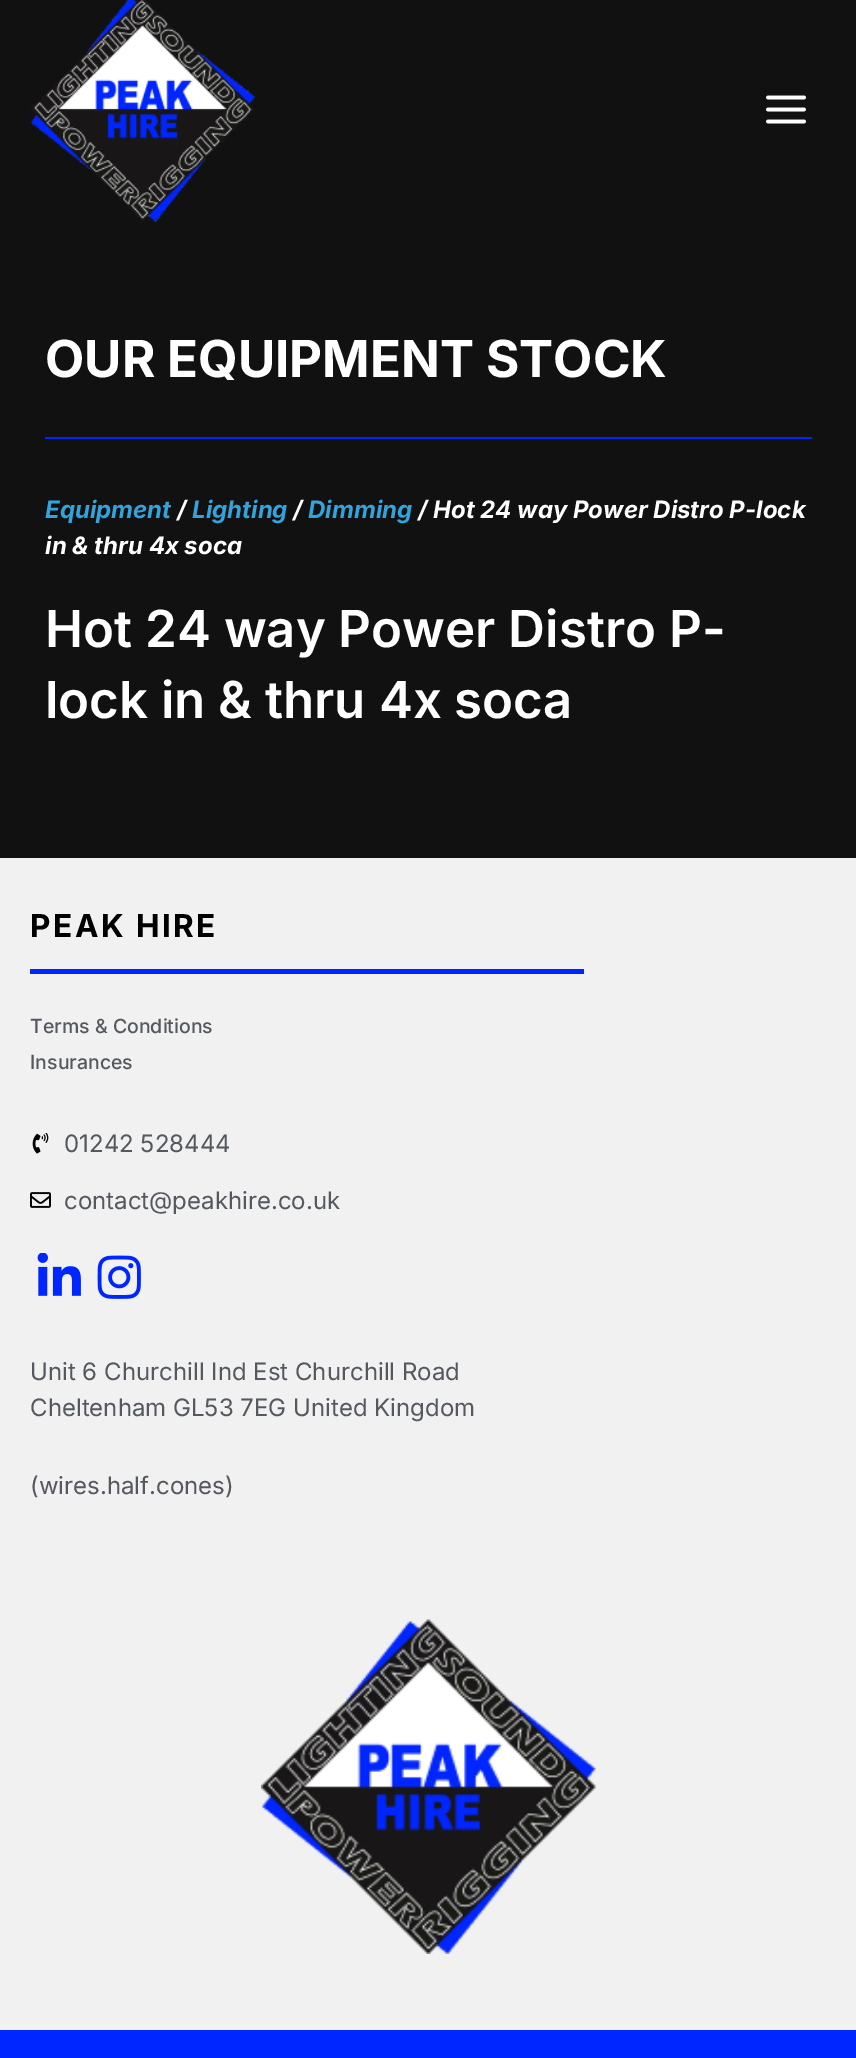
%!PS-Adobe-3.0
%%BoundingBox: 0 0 856 2058
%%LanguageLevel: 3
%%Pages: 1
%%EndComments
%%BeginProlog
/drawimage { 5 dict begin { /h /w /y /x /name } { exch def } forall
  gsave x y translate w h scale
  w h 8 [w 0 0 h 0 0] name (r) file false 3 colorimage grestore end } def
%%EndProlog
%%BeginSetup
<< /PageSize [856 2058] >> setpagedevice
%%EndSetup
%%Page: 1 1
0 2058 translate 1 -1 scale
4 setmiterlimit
0.067 setgray
0 0 856 2058 rectfill
(images/1.raw) 30 0 225 222 drawimage
(images/2.raw) 766 95 40 29 drawimage
0 0.149 1 setrgbcolor
45 437 767 2 rectfill
0.945 setgray
0 858 856 1172 rectfill
0 0.149 1 setrgbcolor
30 969 554 5 rectfill
(images/3.raw) 32 1133 17 21 drawimage
(images/4.raw) 30 1192 21 16 drawimage
(images/5.raw) 37 1253 44 43 drawimage
(images/6.raw) 97 1255 44 44 drawimage
(images/7.raw) 261 1619 335 335 drawimage
0 2030 856 28 rectfill
/Inter-Bold [51 0 0 -51 0 0] selectfont
1 setgray
45 377 moveto (OUR EQUIPMENT STOCK) show
/Inter-BoldItalic [24 0 0 -24 0 0] selectfont
0.2 0.639 0.863 setrgbcolor
45 518 moveto (Equipment) show
1 setgray
177 518 moveto (/) show
0.2 0.639 0.863 setrgbcolor
192 518 moveto (Lighting) show
1 setgray
293 518 moveto (/) show
0.2 0.639 0.863 setrgbcolor
308 518 moveto (Dimming) show
1 setgray
418 518 moveto (/ Hot 24 way Power Distro P-lock) show
45 554 moveto (in & thru 4x soca) show
/Inter-SemiBold [51 0 0 -51 0 0] selectfont
45 647 moveto (Hot 24 way Power Distro P-) show
45 718 moveto (lock in & thru 4x soca) show
/Inter-Bold [31.5 0 0 -31.5 0 0] selectfont
0 setgray
30 937 moveto 2.5 0 (PEAK HIRE) ashow
/Inter-Medium [19.5 0 0 -19.5 0 0] selectfont
0.329 0.349 0.373 setrgbcolor
30 1033 moveto (Terms & Conditions) show
30 1069 moveto (Insurances) show
/Inter-Regular [24 0 0 -24 0 0] selectfont
64 1152 moveto (01242 528444) show
64 1209 moveto (contact@peakhire.co.uk) show
30 1380 moveto (Unit 6 Churchill Ind Est Churchill Road) show
30 1416 moveto (Cheltenham GL53 7EG United Kingdom) show
30 1494 moveto (\(wires.half.cones\)) show
showpage
%%EOF
